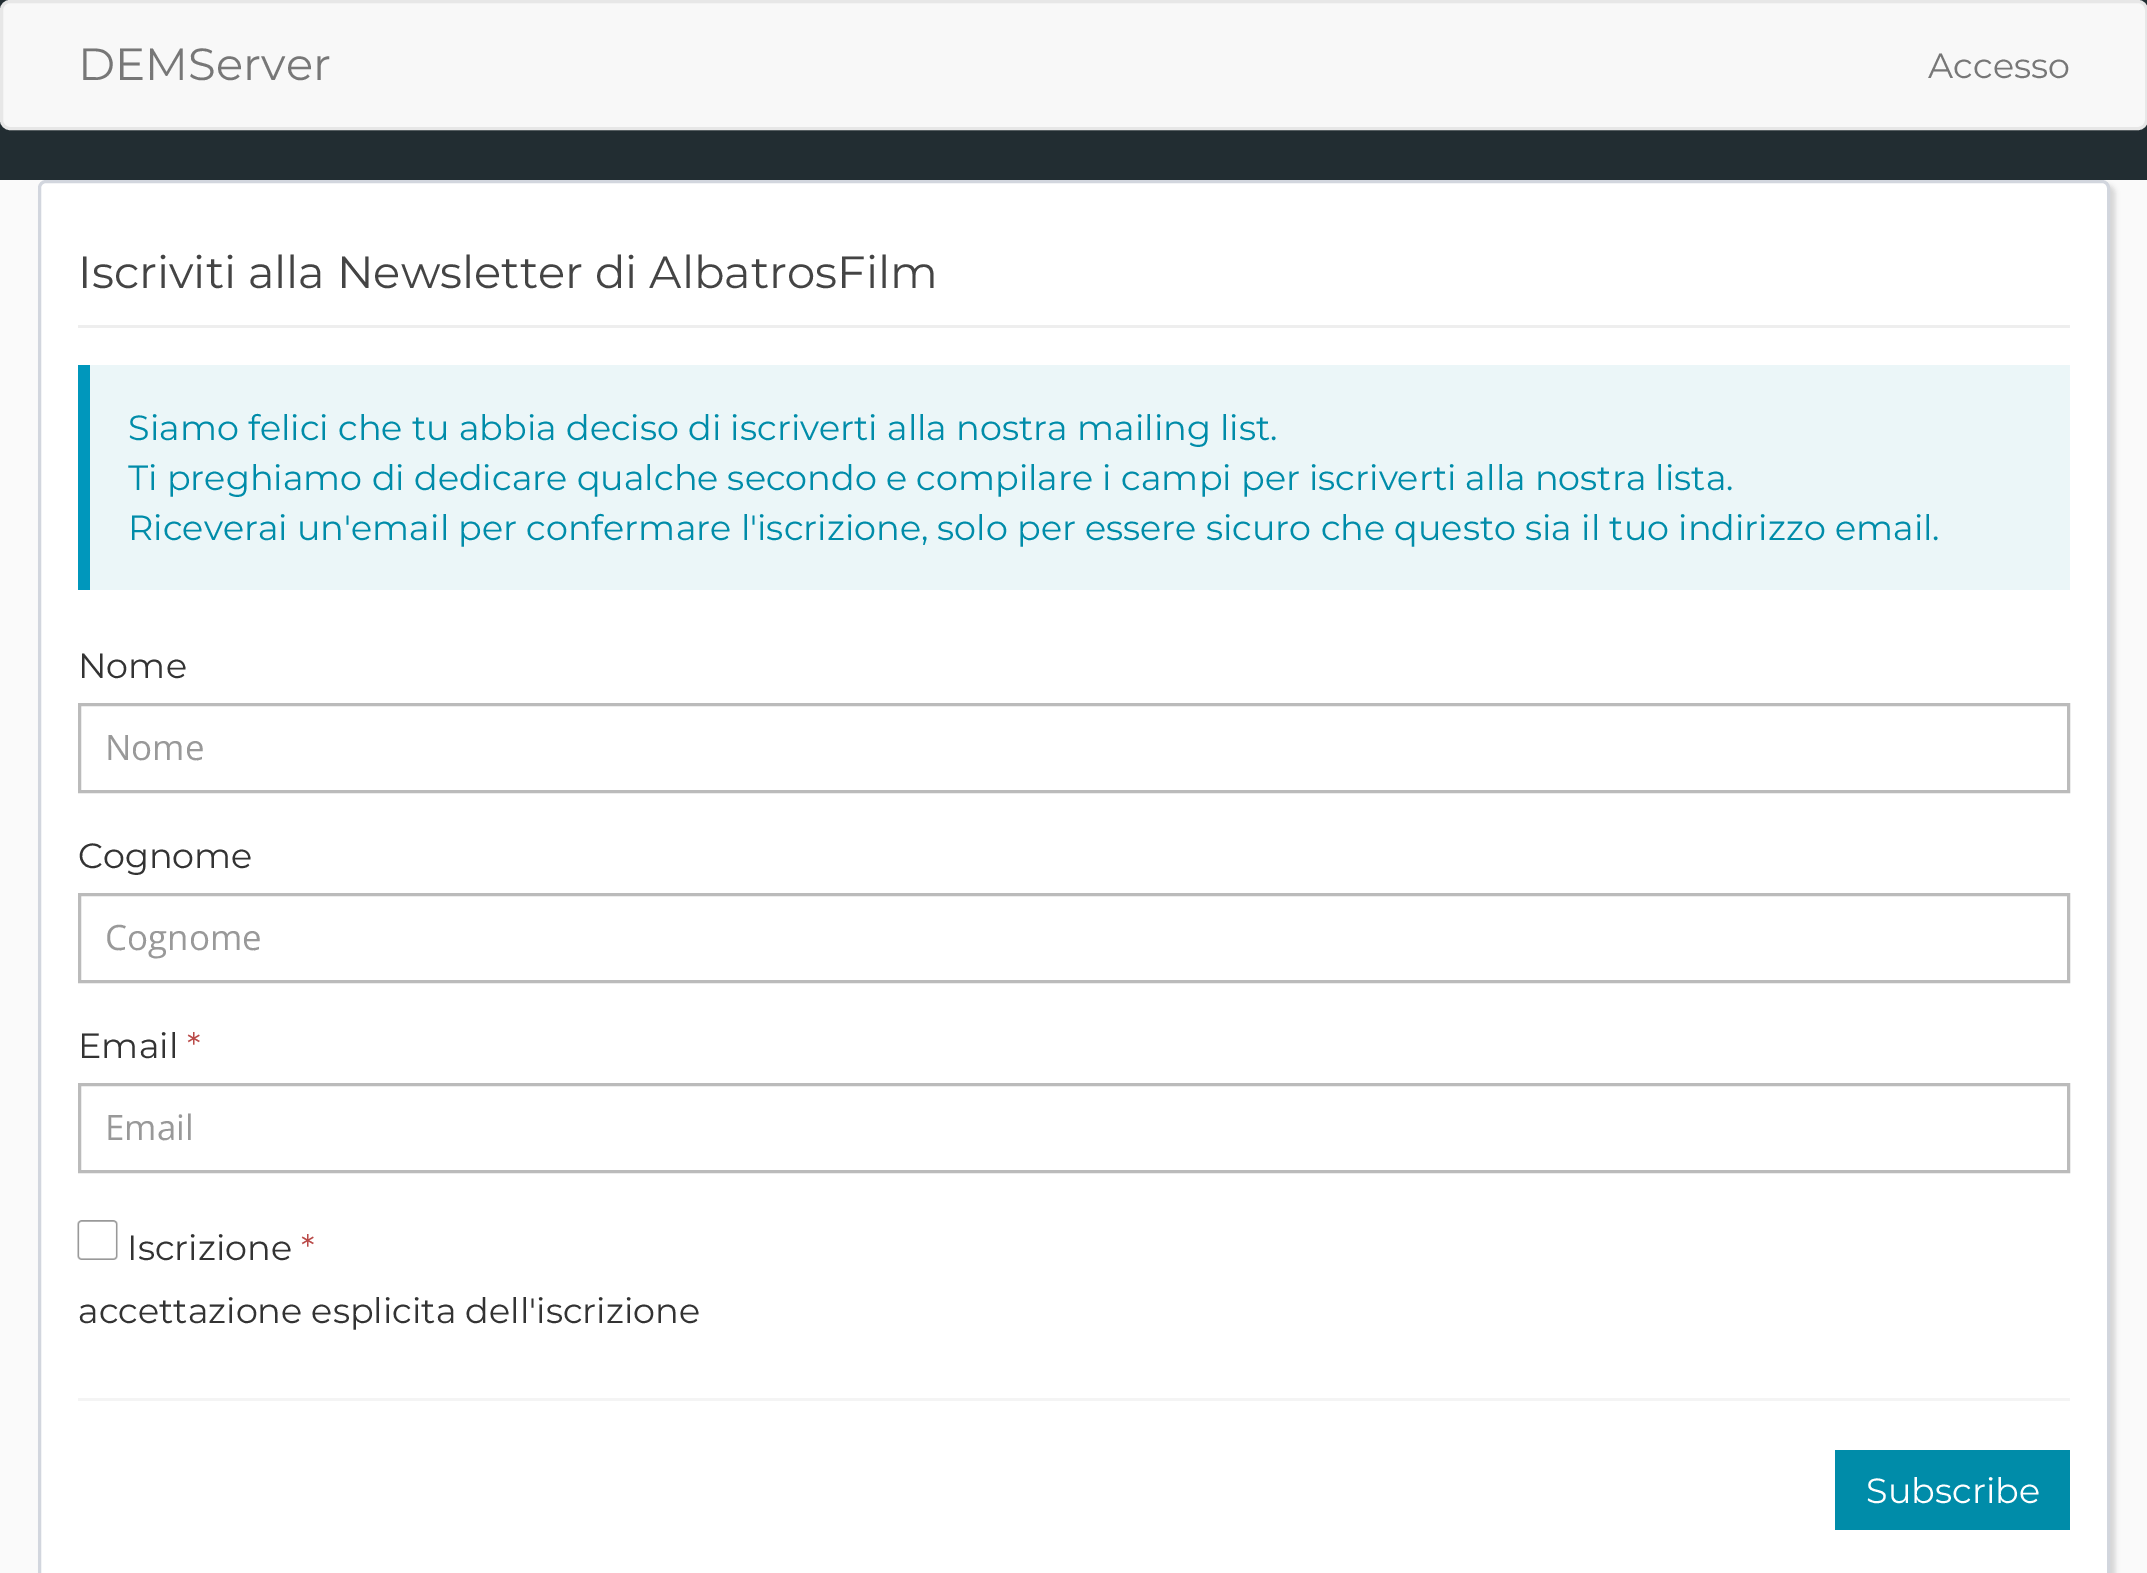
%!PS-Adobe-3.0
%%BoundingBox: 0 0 2147 1573
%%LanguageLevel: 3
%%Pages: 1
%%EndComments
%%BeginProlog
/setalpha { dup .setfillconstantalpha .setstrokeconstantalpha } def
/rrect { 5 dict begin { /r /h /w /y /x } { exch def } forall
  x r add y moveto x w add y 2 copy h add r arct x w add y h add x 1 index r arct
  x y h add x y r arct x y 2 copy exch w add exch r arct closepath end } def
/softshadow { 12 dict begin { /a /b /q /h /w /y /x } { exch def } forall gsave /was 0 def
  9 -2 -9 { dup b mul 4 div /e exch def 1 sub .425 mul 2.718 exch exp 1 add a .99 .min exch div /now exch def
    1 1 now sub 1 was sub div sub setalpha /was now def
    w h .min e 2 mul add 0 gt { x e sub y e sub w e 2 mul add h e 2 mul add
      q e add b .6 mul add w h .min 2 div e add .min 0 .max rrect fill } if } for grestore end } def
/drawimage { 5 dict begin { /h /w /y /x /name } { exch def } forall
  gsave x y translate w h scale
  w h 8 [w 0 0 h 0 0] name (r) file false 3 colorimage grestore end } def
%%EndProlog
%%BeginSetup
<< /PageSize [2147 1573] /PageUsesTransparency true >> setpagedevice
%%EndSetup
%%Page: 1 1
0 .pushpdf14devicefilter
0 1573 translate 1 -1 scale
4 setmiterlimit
0.133 0.176 0.196 setrgbcolor
0 0 2147 1573 rectfill
0.973 setgray
1.5 1.5 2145 127 8.5 rrect gsave fill grestore
0.906 setgray
3 setlinewidth
stroke
0.98 setgray
0 180 2147 1393 rectfill
0 setgray
43 185 2072 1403 8 2.5 0.15 softshadow
1 setgray
39.5 181.5 2069 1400 6.5 rrect gsave fill grestore
0.824 0.839 0.871 setrgbcolor
stroke
0.933 setgray
78 325 1992 3 rectfill
0.922 0.965 0.973 setrgbcolor
90 365 1980 225 rectfill
0 0.592 0.737 setrgbcolor
78 365 12 225 rectfill
0.733 setgray
79.5 704.5 1989 87 rectstroke
79.5 894.5 1989 87 rectstroke
79.5 1084.5 1989 87 rectstroke
(images/1.raw) 77 1220 41 40 drawimage
0.957 setgray
78 1398 1992 3 rectfill
0 0.549 0.663 setrgbcolor
1835 1450 235 80 rectfill
/Montserrat-Regular [45 0 0 -45 0 0] selectfont
0.467 setgray
78 80 moveto (DEMServer) show
/Montserrat-Regular [35 0 0 -35 0 0] selectfont
1928 78 moveto (Accesso) show
/Montserrat-Regular [45 0 0 -45 0 0] selectfont
0.267 setgray
78 288 moveto (Iscriviti alla Newsletter di AlbatrosFilm) show
/Montserrat-Regular [35 0 0 -35 0 0] selectfont
0 0.549 0.663 setrgbcolor
128 440 moveto (Siamo felici che tu abbia deciso di iscriverti alla nostra mailing list.) show
128 490 moveto (Ti preghiamo di dedicare qualche secondo e compilare i campi per iscriverti alla nostra lista.) show
128 540 moveto (Riceverai un'email per confermare l'iscrizione, solo per essere sicuro che questo sia il tuo indirizzo email.) show
0.2 setgray
78 678 moveto (Nome) show
/OpenSans-Regular [35 0 0 -35 0 0] selectfont
0.6 setgray
105 760 moveto (Nome) show
/Montserrat-Regular [35 0 0 -35 0 0] selectfont
0.2 setgray
78 868 moveto (Cognome) show
/OpenSans-Regular [35 0 0 -35 0 0] selectfont
0.6 setgray
105 950 moveto (Cognome) show
/Montserrat-Regular [35 0 0 -35 0 0] selectfont
0.2 setgray
78 1058 moveto (Email) show
0.725 0.29 0.282 setrgbcolor
187 1058 moveto (*) show
/OpenSans-Regular [35 0 0 -35 0 0] selectfont
0.6 setgray
105 1140 moveto (Email) show
/Montserrat-Regular [35 0 0 -35 0 0] selectfont
0.2 setgray
127 1260 moveto (Iscrizione) show
0.725 0.29 0.282 setrgbcolor
301 1260 moveto (*) show
0.2 setgray
78 1323 moveto (accettazione esplicita dell'iscrizione) show
1 setgray
1866 1503 moveto (Subscribe) show
.poppdf14devicefilter showpage
%%EOF
